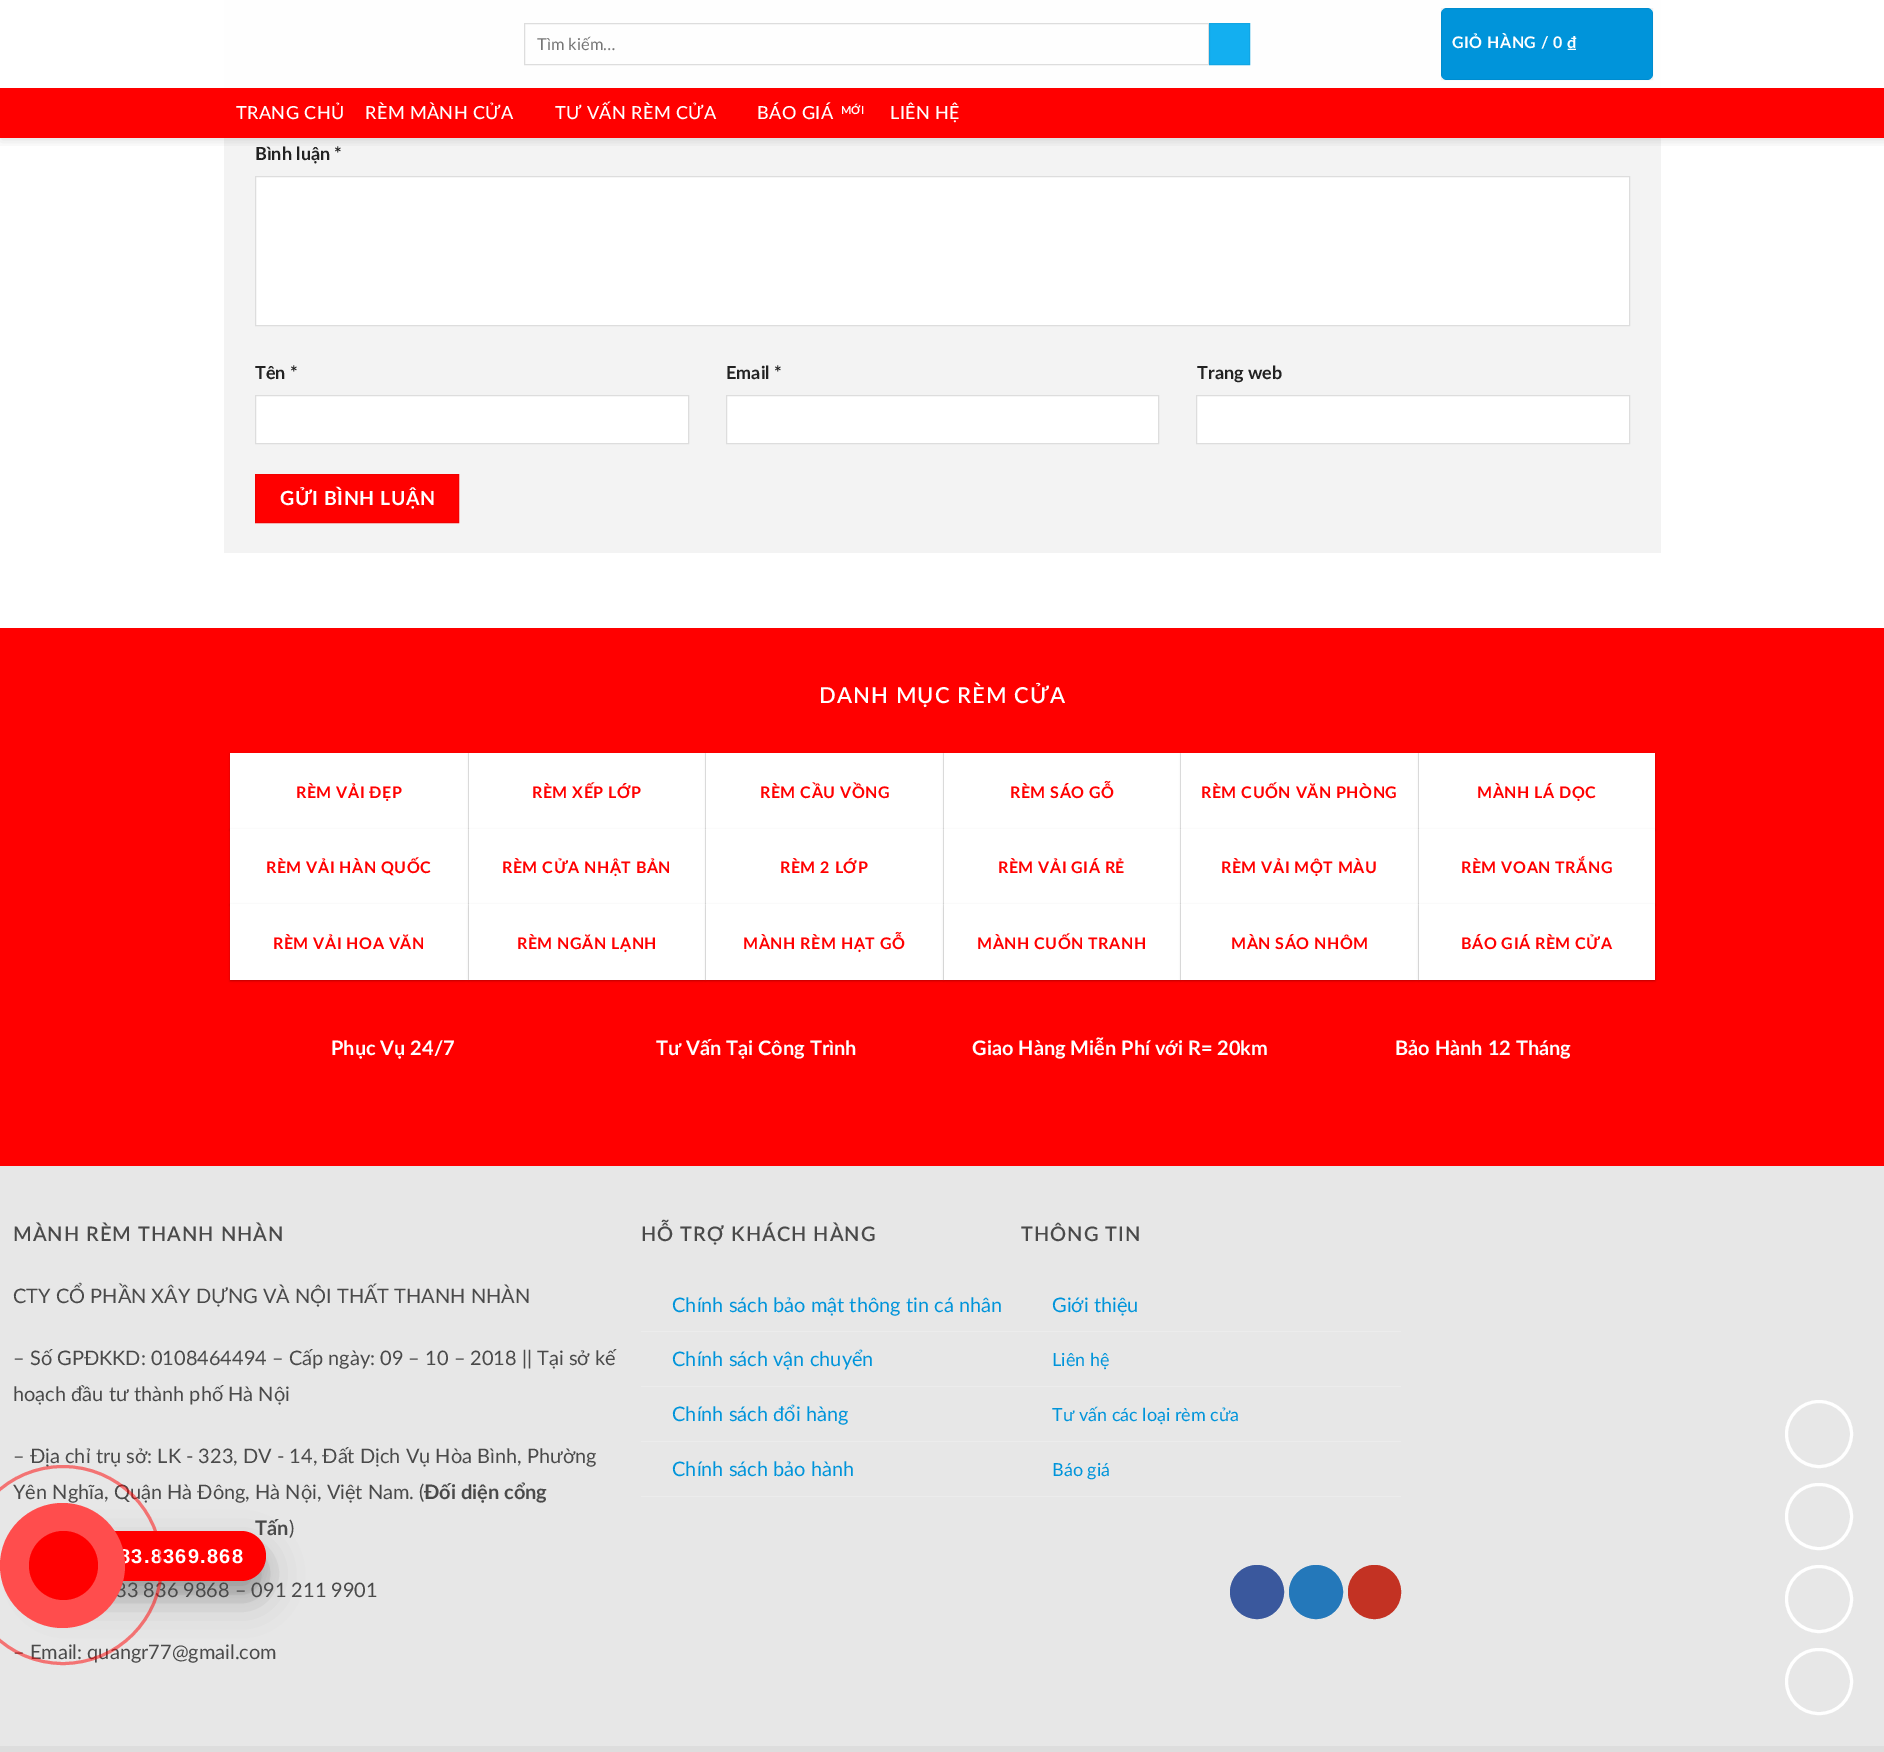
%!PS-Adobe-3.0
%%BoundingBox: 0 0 1884 1752
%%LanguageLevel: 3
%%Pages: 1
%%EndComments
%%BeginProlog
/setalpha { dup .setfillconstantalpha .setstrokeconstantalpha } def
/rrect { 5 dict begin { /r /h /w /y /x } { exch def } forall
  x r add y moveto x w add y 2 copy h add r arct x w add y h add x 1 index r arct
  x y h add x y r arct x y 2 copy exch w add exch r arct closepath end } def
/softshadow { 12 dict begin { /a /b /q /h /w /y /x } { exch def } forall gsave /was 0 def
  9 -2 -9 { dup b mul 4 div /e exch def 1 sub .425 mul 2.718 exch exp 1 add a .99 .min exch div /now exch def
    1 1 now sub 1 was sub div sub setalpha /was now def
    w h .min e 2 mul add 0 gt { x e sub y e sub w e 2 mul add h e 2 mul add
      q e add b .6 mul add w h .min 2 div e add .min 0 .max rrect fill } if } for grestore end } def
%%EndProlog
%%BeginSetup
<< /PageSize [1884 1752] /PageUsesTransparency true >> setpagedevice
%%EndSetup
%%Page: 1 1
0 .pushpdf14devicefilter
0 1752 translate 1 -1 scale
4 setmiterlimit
1 setgray
0 0 1884 1752 rectfill
0.953 setgray
224 0 1437 553 rectfill
gsave
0 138 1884 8 rectclip
0 setgray
1 1 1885 138 0 6 0.15 softshadow
grestore
0.9 setalpha
1 setgray
224 0 1437 88 rectfill
1 setalpha
0.867 setgray
524.5 23.5 684 41 rectstroke
0.075 0.686 0.941 setrgbcolor
newpath 1209.5 23.5 moveto 1249.5 23.5 lineto 1249.5 64.5 lineto 1209.5 64.5 lineto closepath gsave fill grestore
0.071 0.651 0.894 setrgbcolor
stroke
0 0.58 0.855 setrgbcolor
1441 8 212 72 6 rrect fill
0.05 setalpha
0 setgray
1441.5 8.5 211 71 rectstroke
1 setalpha
1 0 0 setrgbcolor
0 88 1884 50 rectfill
1 setgray
newpath 255.5 176.5 moveto 1629.5 176.5 lineto 1629.5 325.5 lineto 255.5 325.5 lineto closepath gsave fill grestore
0.867 setgray
stroke
1 setgray
newpath 255.5 395.5 moveto 688.5 395.5 lineto 688.5 443.5 lineto 255.5 443.5 lineto closepath gsave fill grestore
0.867 setgray
stroke
1 setgray
newpath 726.5 395.5 moveto 1158.5 395.5 lineto 1158.5 443.5 lineto 726.5 443.5 lineto closepath gsave fill grestore
0.867 setgray
stroke
1 setgray
newpath 1196.5 395.5 moveto 1629.5 395.5 lineto 1629.5 443.5 lineto 1196.5 443.5 lineto closepath gsave fill grestore
0.867 setgray
stroke
1 0 0 setrgbcolor
newpath 255.5 474.5 moveto 458.5 474.5 lineto 458.5 522.5 lineto 255.5 522.5 lineto closepath gsave fill grestore
0.949 0 0 setrgbcolor
stroke
1 0 0 setrgbcolor
0 628 1884 538 rectfill
0 setgray
230 754 238 76 0 1 0.24 softshadow
1 setgray
230 753 238 76 rectfill
0.925 setgray
468 753 1 76 rectfill
0 setgray
469 754 236 76 0 1 0.24 softshadow
1 setgray
469 753 236 76 rectfill
0.925 setgray
705 753 1 76 rectfill
0 setgray
706 754 237 76 0 1 0.24 softshadow
1 setgray
706 753 237 76 rectfill
0.925 setgray
943 753 1 76 rectfill
0 setgray
944 754 236 76 0 1 0.24 softshadow
1 setgray
944 753 236 76 rectfill
0.925 setgray
1180 753 1 76 rectfill
0 setgray
1181 754 237 76 0 1 0.24 softshadow
1 setgray
1181 753 237 76 rectfill
0.925 setgray
1418 753 1 76 rectfill
0 setgray
1419 754 236 76 0 1 0.24 softshadow
1 setgray
1419 753 236 76 rectfill
0 setgray
230 830 238 75 0 1 0.24 softshadow
1 setgray
230 829 238 75 rectfill
0.925 setgray
468 829 1 75 rectfill
0 setgray
469 830 236 75 0 1 0.24 softshadow
1 setgray
469 829 236 75 rectfill
0.925 setgray
705 829 1 75 rectfill
0 setgray
706 830 237 75 0 1 0.24 softshadow
1 setgray
706 829 237 75 rectfill
0.925 setgray
943 829 1 75 rectfill
0 setgray
944 830 236 75 0 1 0.24 softshadow
1 setgray
944 829 236 75 rectfill
0.925 setgray
1180 829 1 75 rectfill
0 setgray
1181 830 237 75 0 1 0.24 softshadow
1 setgray
1181 829 237 75 rectfill
0.925 setgray
1418 829 1 75 rectfill
0 setgray
1419 830 236 75 0 1 0.24 softshadow
1 setgray
1419 829 236 75 rectfill
0 setgray
230 905 238 76 0 1 0.24 softshadow
233 908 232 71 0 2 0.12 softshadow
1 setgray
230 904 238 76 rectfill
0.925 setgray
468 904 1 76 rectfill
0 setgray
469 905 236 76 0 1 0.24 softshadow
471 908 232 71 0 2 0.12 softshadow
1 setgray
469 904 236 76 rectfill
0.925 setgray
705 904 1 76 rectfill
0 setgray
706 905 237 76 0 1 0.24 softshadow
709 908 231 71 0 2 0.12 softshadow
1 setgray
706 904 237 76 rectfill
0.925 setgray
943 904 1 76 rectfill
0 setgray
944 905 236 76 0 1 0.24 softshadow
946 908 232 71 0 2 0.12 softshadow
1 setgray
944 904 236 76 rectfill
0.925 setgray
1180 904 1 76 rectfill
0 setgray
1181 905 237 76 0 1 0.24 softshadow
1184 908 231 71 0 2 0.12 softshadow
1 setgray
1181 904 237 76 rectfill
0.925 setgray
1418 904 1 76 rectfill
0 setgray
1419 905 236 76 0 1 0.24 softshadow
1421 908 232 71 0 2 0.12 softshadow
1 setgray
1419 904 236 76 rectfill
0.906 setgray
0 1166 1884 580 rectfill
0.925 setgray
641 1331 760 1 rectfill
641 1386 760 1 rectfill
641 1441 760 1 rectfill
641 1496 760 1 rectfill
0.227 0.345 0.616 setrgbcolor
newpath 1257 1592 26.5 0 360 arc closepath gsave fill grestore
stroke
0.141 0.471 0.729 setrgbcolor
newpath 1316 1592 26.5 0 360 arc closepath gsave fill grestore
stroke
0.765 0.196 0.137 setrgbcolor
1348.5 1565.5 52 53 26 rrect gsave fill grestore
stroke
0.867 setgray
0 1746 1884 6 rectfill
1 setgray
3 setlinewidth
newpath 1819 1434 32.5 0 360 arc closepath stroke
1786.5 1484.5 65 64 32 rrect stroke
newpath 1819 1599 32.5 0 360 arc closepath stroke
1786.5 1649.5 65 64 32 rrect stroke
0 setgray
41 1544 225 50 25 6 0.1 softshadow
41 1549 225 50 25 17.5 0.25 softshadow
/Lato-Regular [16.5 0 0 -16.5 0 0] selectfont
0.459 setgray
537 50 moveto (Tìm kiếm…) show
/Lato-Bold [16 0 0 -16 0 0] selectfont
1 setgray
1452 48 moveto 0.5 0 (GIỎ HÀNG / 0 ₫) ashow
/Lato-Medium [18 0 0 -18 0 0] selectfont
236 119 moveto 0.4 0 (TRANG CHỦ) ashow
365 119 moveto 0.4 0 (RÈM MÀNH CỬA) ashow
555 119 moveto 0.4 0 (TƯ VẤN RÈM CỬA) ashow
757 119 moveto 0.4 0 (BÁO GIÁ) ashow
/Lato-Bold [11 0 0 -11 0 0] selectfont
841 114 moveto (MỚI) show
/Lato-Medium [18 0 0 -18 0 0] selectfont
890 119 moveto 0.4 0 (LIÊN HỆ) ashow
/Lato-Bold [18 0 0 -18 0 0] selectfont
0.133 setgray
255 160 moveto (Bình luận *) show
255 379 moveto (Tên *) show
726 379 moveto (Email *) show
1197 379 moveto (Trang web) show
/Lato-Bold [19.5 0 0 -19.5 0 0] selectfont
1 setgray
280 505 moveto 0.6 0 (GỬI BÌNH LUẬN) ashow
/Lato-SemiBold [22 0 0 -22 0 0] selectfont
819 703 moveto 1.1 0 (DANH MỤC RÈM CỬA) ashow
/Lato-Bold [16 0 0 -16 0 0] selectfont
1 0 0 setrgbcolor
296 798 moveto 0.5 0 (RÈM VẢI ĐẸP) ashow
532 798 moveto 0.5 0 (RÈM XẾP LỚP) ashow
760 798 moveto 0.5 0 (RÈM CẦU VỒNG) ashow
1010 798 moveto 0.5 0 (RÈM SÁO GỖ) ashow
1201 798 moveto 0.5 0 (RÈM CUỐN VĂN PHÒNG) ashow
1477 798 moveto 0.5 0 (MÀNH LÁ DỌC) ashow
266 873 moveto 0.5 0 (RÈM VẢI HÀN QUỐC) ashow
502 873 moveto 0.5 0 (RÈM CỬA NHẬT BẢN) ashow
780 873 moveto 0.5 0 (RÈM 2 LỚP) ashow
998 873 moveto 0.5 0 (RÈM VẢI GIÁ RẺ) ashow
1221 873 moveto 0.5 0 (RÈM VẢI MỘT MÀU) ashow
1461 873 moveto 0.5 0 (RÈM VOAN TRẮNG) ashow
273 949 moveto 0.5 0 (RÈM VẢI HOA VĂN) ashow
517 949 moveto 0.5 0 (RÈM NGĂN LẠNH) ashow
743 949 moveto 0.5 0 (MÀNH RÈM HẠT GỖ) ashow
977 949 moveto 0.5 0 (MÀNH CUỐN TRANH) ashow
1231 949 moveto 0.5 0 (MÀN SÁO NHÔM) ashow
1461 949 moveto 0.5 0 (BÁO GIÁ RÈM CỬA) ashow
/Lato-Bold [20 0 0 -20 0 0] selectfont
1 setgray
331 1055 moveto (Phục Vụ 24/7) show
656 1055 moveto (Tư Vấn Tại Công Trình) show
972 1055 moveto (Giao Hàng Miễn Phí với R= 20km) show
1395 1055 moveto (Bảo Hành 12 Tháng) show
/Lato-SemiBold [20 0 0 -20 0 0] selectfont
0.29 setgray
13 1241 moveto 1 0 (MÀNH RÈM THANH NHÀN) ashow
/Lato-Regular [20 0 0 -20 0 0] selectfont
13 1303 moveto (CTY CỔ PHẦN XÂY DỰNG VÀ NỘI THẤT THANH NHÀN) show
13 1365 moveto (– Số GPĐKKD: 0108464494 – Cấp ngày: 09 – 10 – 2018 || Tại sở kế) show
13 1401 moveto (hoạch đầu tư thành phố Hà Nội) show
13 1463 moveto (– Địa chỉ trụ sở: LK - 323, DV - 14, Đất Dịch Vụ Hòa Bình, Phường) show
13 1499 moveto (Yên Nghĩa, Quận Hà Đông, Hà Nội, Việt Nam. \() show
/Lato-Bold [20 0 0 -20 0 0] selectfont
424 1499 moveto (Đối diện cổng) show
255 1535 moveto (Tấn) show
/Lato-Regular [20 0 0 -20 0 0] selectfont
289 1535 moveto (\)) show
115 1597 moveto (83 836 9868 – 091 211 9901) show
13 1659 moveto (– Email: quangr77@gmail.com) show
/Lato-SemiBold [20 0 0 -20 0 0] selectfont
641 1241 moveto 1 0 (HỖ TRỢ KHÁCH HÀNG) ashow
/Lato-Regular [20 0 0 -20 0 0] selectfont
0 0.58 0.855 setrgbcolor
672 1312 moveto (Chính sách bảo mật thông tin cá nhân) show
672 1366 moveto (Chính sách vận chuyển) show
672 1421 moveto (Chính sách đổi hàng) show
672 1476 moveto (Chính sách bảo hành) show
/Lato-SemiBold [20 0 0 -20 0 0] selectfont
0.29 setgray
1021 1241 moveto 1 0 (THÔNG TIN) ashow
/Lato-Regular [20 0 0 -20 0 0] selectfont
0 0.58 0.855 setrgbcolor
1052 1312 moveto (Giới thiệu) show
/Lato-Regular [18 0 0 -18 0 0] selectfont
1052 1366 moveto (Liên hệ) show
1052 1421 moveto (Tư vấn các loại rèm cửa) show
1052 1476 moveto (Báo giá) show
1 0 0 setrgbcolor
41 1531 225 50 25 rrect fill
/LiberationSans-Bold [20 0 0 -20 0 0] selectfont
1 setgray
119 1563 moveto 1.25 0 (83.8369.868) ashow
0.5 setalpha
1 0 0 setrgbcolor
newpath 63 1565 98.5 0 360 arc closepath stroke
1 setalpha
1 0.302 0.302 setrgbcolor
newpath 62.5 1565.5 62.5 0 360 arc closepath fill
1 0 0 setrgbcolor
newpath 63.5 1565.5 34.5 0 360 arc closepath fill
.poppdf14devicefilter showpage
%%EOF
